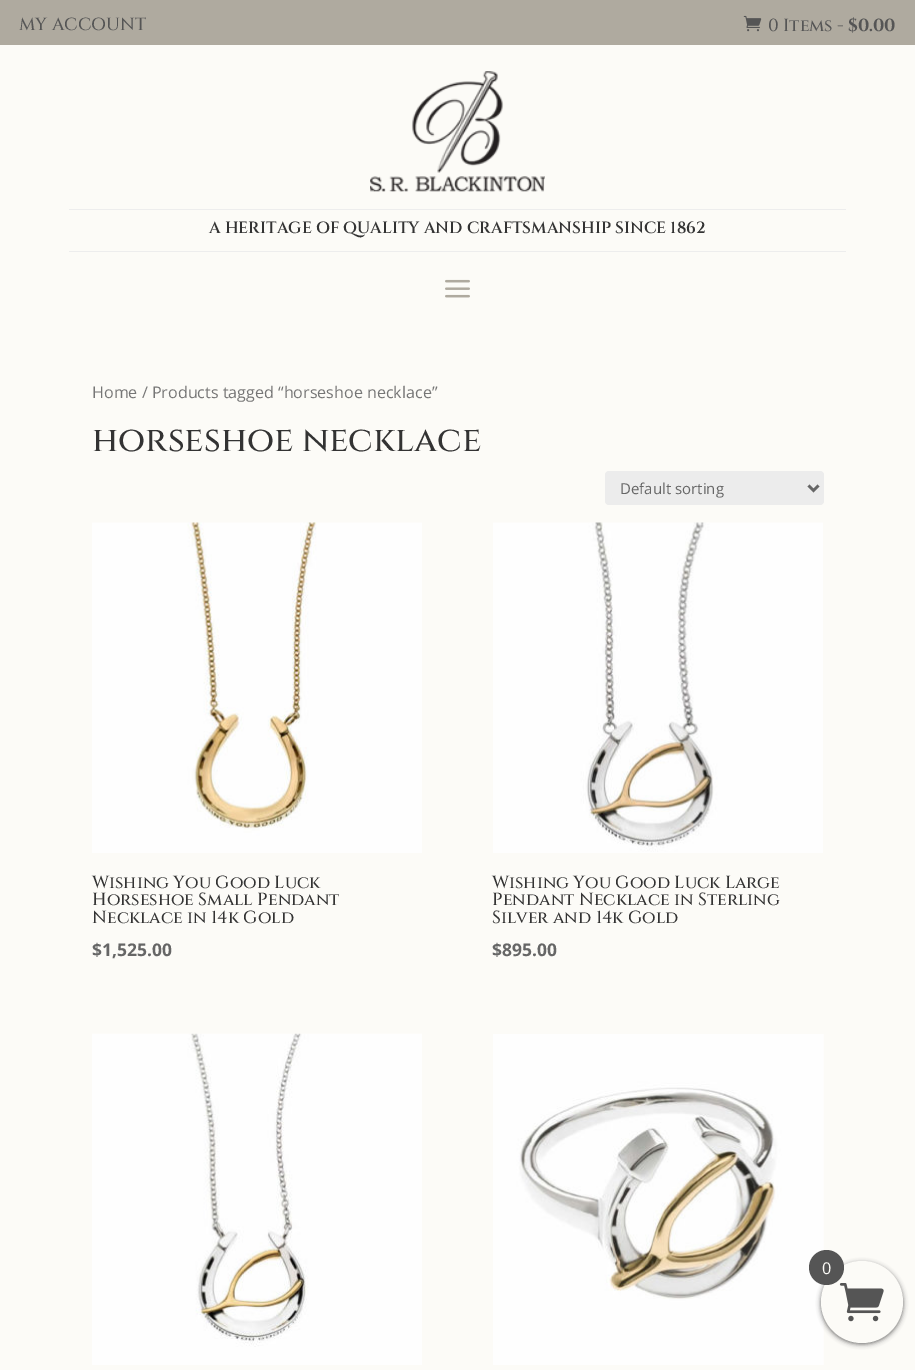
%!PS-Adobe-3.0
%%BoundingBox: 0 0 915 1370
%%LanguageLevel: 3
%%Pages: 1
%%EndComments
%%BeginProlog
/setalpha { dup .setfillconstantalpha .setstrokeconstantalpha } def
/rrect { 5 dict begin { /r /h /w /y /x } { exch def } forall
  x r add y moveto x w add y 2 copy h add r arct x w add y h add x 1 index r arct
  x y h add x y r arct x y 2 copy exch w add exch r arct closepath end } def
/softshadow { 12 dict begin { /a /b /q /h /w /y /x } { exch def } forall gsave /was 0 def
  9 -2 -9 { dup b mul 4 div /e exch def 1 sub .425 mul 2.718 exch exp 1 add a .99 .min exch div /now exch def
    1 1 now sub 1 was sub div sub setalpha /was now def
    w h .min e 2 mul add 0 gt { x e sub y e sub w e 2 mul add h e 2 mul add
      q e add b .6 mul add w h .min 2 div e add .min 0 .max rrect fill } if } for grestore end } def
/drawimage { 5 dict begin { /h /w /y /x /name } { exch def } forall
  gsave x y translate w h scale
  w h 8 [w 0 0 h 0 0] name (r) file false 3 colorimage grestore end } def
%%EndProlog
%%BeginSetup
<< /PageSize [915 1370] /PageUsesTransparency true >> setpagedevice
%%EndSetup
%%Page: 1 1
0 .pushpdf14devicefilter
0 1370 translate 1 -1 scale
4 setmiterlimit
0.988 0.984 0.969 setrgbcolor
0 0 915 1370 rectfill
0.686 0.667 0.624 setrgbcolor
0 0 915 45 rectfill
(images/1.raw) 743 15 19 17 drawimage
(images/2.raw) 370 71 175 121 drawimage
0.929 setgray
69 209 777 1 rectfill
69 251 777 1 rectfill
(images/3.raw) 445 279 25 19 drawimage
0.925 setgray
605 471 219 34 4 rrect fill
0.4 setgray
2.5 setlinewidth
newpath 808.5 485.5 moveto 813.5 490.5 lineto 818.5 485.5 lineto stroke
(images/4.raw) 92 522 330 331 drawimage
(images/5.raw) 493 522 330 331 drawimage
(images/6.raw) 92 1033 330 332 drawimage
(images/7.raw) 493 1034 331 331 drawimage
821 1263 82 81 40.5 2.5 1 softshadow
0.988 0.984 0.969 setrgbcolor
newpath 862 1302 41 0 360 arc closepath fill
(images/8.raw) 839 1283 45 39 drawimage
0.333 setgray
newpath 826.5 1267.5 17.5 0 360 arc closepath fill
/Cinzel-Medium [17.5 0 0 -17.5 0 0] selectfont
19 30 moveto (MY ACCOUNT) show
768 31 moveto (0 Items -) show
/Cinzel-Bold [17.5 0 0 -17.5 0 0] selectfont
848 31 moveto ($0.00) show
/Cinzel-SemiBold [16.25 0 0 -16.25 0 0] selectfont
0.2 setgray
209 233 moveto (A HERITAGE OF QUALITY AND CRAFTSMANSHIP SINCE 1862) show
/OpenSans-Regular [16.1 0 0 -16.1 0 0] selectfont
0.463 setgray
92 398 moveto (Home / Products tagged “horseshoe necklace”) show
/Cinzel-Medium [35 0 0 -35 0 0] selectfont
0.2 setgray
92 451 moveto (horseshoe necklace) show
/OpenSans-Regular [15 0 0 -15 0 0] selectfont
0.4 setgray
620 494 moveto (Default sorting) show
/Cinzel-Medium [17.5 0 0 -17.5 0 0] selectfont
0.2 setgray
92 888 moveto (Wishing You Good Luck) show
92 905 moveto (Horseshoe Small Pendant) show
92 923 moveto (Necklace in 14k Gold) show
/OpenSans-Bold [17.5 0 0 -17.5 0 0] selectfont
0.4 setgray
92 956 moveto ($1,525.00) show
/Cinzel-Medium [17.5 0 0 -17.5 0 0] selectfont
0.2 setgray
492 888 moveto (Wishing You Good Luck Large) show
492 905 moveto (Pendant Necklace in Sterling) show
492 923 moveto (Silver and 14k Gold) show
/OpenSans-Bold [17.5 0 0 -17.5 0 0] selectfont
0.4 setgray
492 956 moveto ($895.00) show
/OpenSans-Regular [16.25 0 0 -16.25 0 0] selectfont
0.988 0.984 0.969 setrgbcolor
822 1274 moveto (0) show
.poppdf14devicefilter showpage
%%EOF
